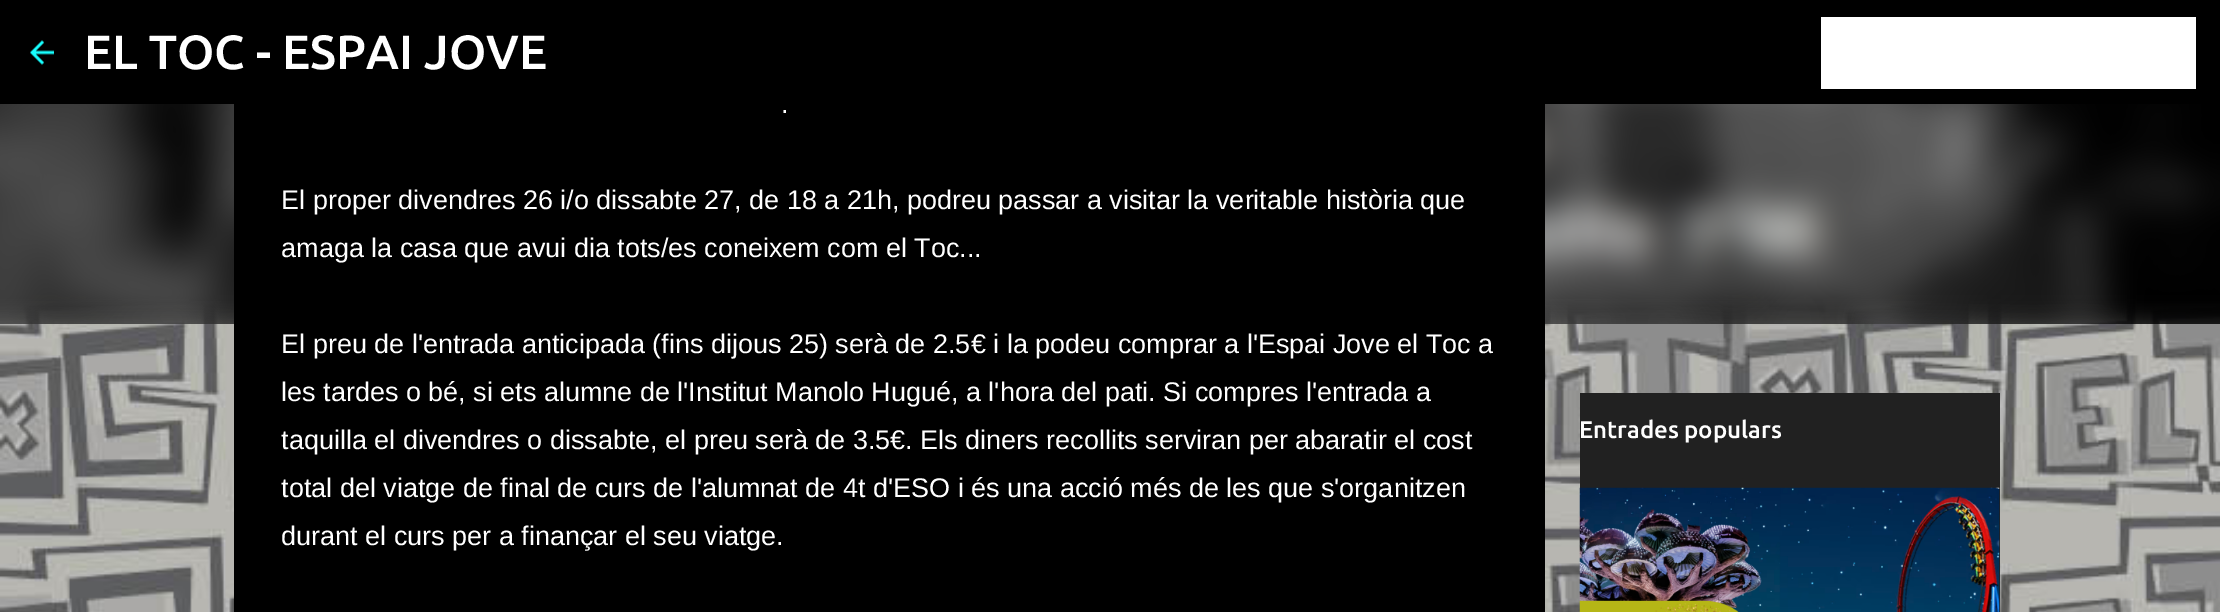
%!PS-Adobe-3.0
%%BoundingBox: 0 0 2220 612
%%LanguageLevel: 3
%%Pages: 1
%%EndComments
%%BeginProlog
/drawimage { 5 dict begin { /h /w /y /x /name } { exch def } forall
  gsave x y translate w h scale
  w h 8 [w 0 0 h 0 0] name (r) file false 3 colorimage grestore end } def
%%EndProlog
%%BeginSetup
<< /PageSize [2220 612] >> setpagedevice
%%EndSetup
%%Page: 1 1
0 612 translate 1 -1 scale
4 setmiterlimit
1 setgray
0 0 2220 612 rectfill
(images/1.raw) 0 299 2220 313 drawimage
0 setgray
0 0 2220 104 rectfill
(images/2.raw) 30 40 24 25 drawimage
1 setgray
1821 17 375 72 rectfill
(images/4.raw) 0 104 2220 220 drawimage
0 setgray
234 104 1311 508 rectfill
0.129 setgray
1580 393 420 219 rectfill
(images/3.raw) 1579 487 421 125 drawimage
/Ubuntu-Medium [48 0 0 -48 0 0] selectfont
1 setgray
84 69 moveto (EL TOC - ESPAI JOVE) show
/LiberationSans-Regular [27 0 0 -27 0 0] selectfont
781 113 moveto (.) show
281 209 moveto (El proper divendres 26 i/o dissabte 27, de 18 a 21h, podreu passar a visitar la veritable història que) show
281 257 moveto (amaga la casa que avui dia tots/es coneixem com el Toc...) show
281 353 moveto (El preu de l'entrada anticipada \(fins dijous 25\) serà de 2.5€ i la podeu comprar a l'Espai Jove el Toc a) show
281 401 moveto (les tardes o bé, si ets alumne de l'Institut Manolo Hugué, a l'hora del pati. Si compres l'entrada a) show
281 449 moveto (taquilla el divendres o dissabte, el preu serà de 3.5€. Els diners recollits serviran per abaratir el cost) show
281 497 moveto (total del viatge de final de curs de l'alumnat de 4t d'ESO i és una acció més de les que s'organitzen) show
281 545 moveto (durant el curs per a finançar el seu viatge.) show
/Ubuntu-Medium [24 0 0 -24 0 0] selectfont
1579 438 moveto (Entrades populars) show
showpage
%%EOF
